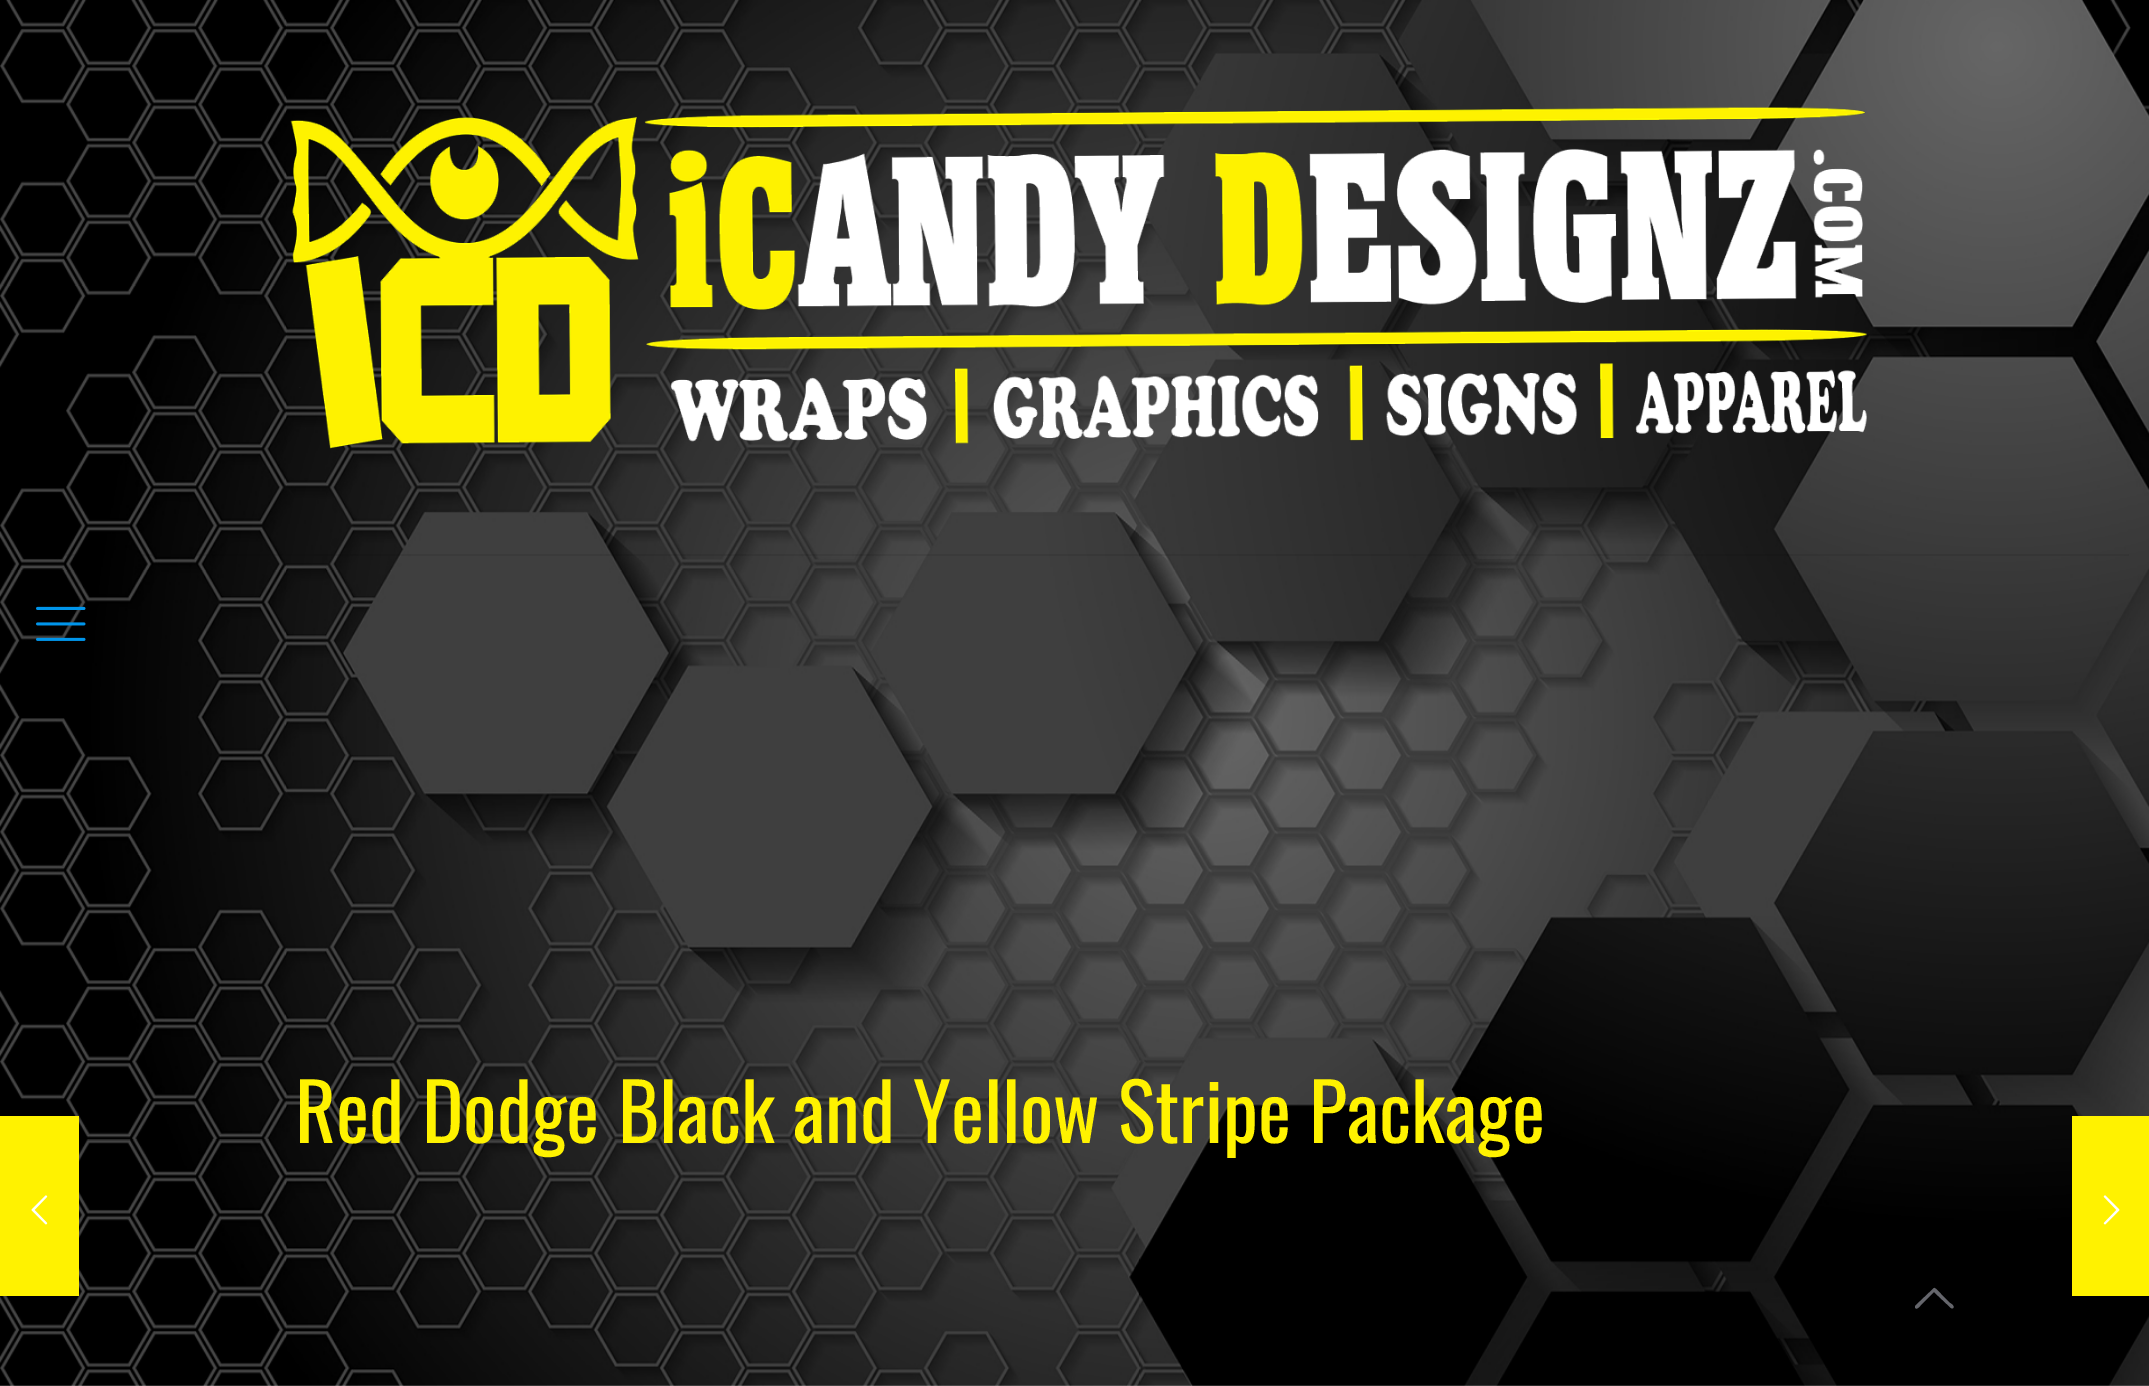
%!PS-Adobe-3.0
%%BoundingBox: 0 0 2149 1386
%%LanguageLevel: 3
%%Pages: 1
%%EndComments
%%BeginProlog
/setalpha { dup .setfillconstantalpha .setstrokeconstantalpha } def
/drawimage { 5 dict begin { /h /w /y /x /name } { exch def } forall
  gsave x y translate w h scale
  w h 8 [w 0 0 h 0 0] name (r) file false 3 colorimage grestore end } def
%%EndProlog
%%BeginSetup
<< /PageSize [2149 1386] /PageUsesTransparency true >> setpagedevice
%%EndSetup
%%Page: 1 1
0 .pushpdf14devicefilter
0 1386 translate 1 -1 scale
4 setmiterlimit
1 setgray
0 0 2149 1386 rectfill
(images/1.raw) 0 0 2149 1386 drawimage
1 0.949 0 setrgbcolor
0 1116 79 180 rectfill
(images/2.raw) 31 1195 17 30 drawimage
0.08 setalpha
0 setgray
64 554 2065 2 rectfill
1 setalpha
(images/3.raw) 290 107 1596 342 drawimage
(images/4.raw) 36 606 50 35 drawimage
1 0.949 0 setrgbcolor
2072 1116 77 180 rectfill
(images/5.raw) 2103 1195 17 30 drawimage
0.396 0.4 0.424 setrgbcolor
newpath 1951 1308 moveto 1934 1292 lineto 1920.5 1305.5 lineto 1919.5 1306.5 1916.5 1310.5 1915 1307.5 curveto 1915 1306 lineto 1934 1288 lineto 1935.5 1287.5 1940.5 1293.5 1941 1294 curveto 1950 1303 lineto 1950.5 1303 1956.5 1307.5 1952 1308.5 curveto closepath fill
/Oswald-Regular [78.75 0 0 -78.75 0 0] selectfont
1 0.949 0 setrgbcolor
295 1143 moveto (Red Dodge Black and Yellow Stripe Package) show
.poppdf14devicefilter showpage
%%EOF
